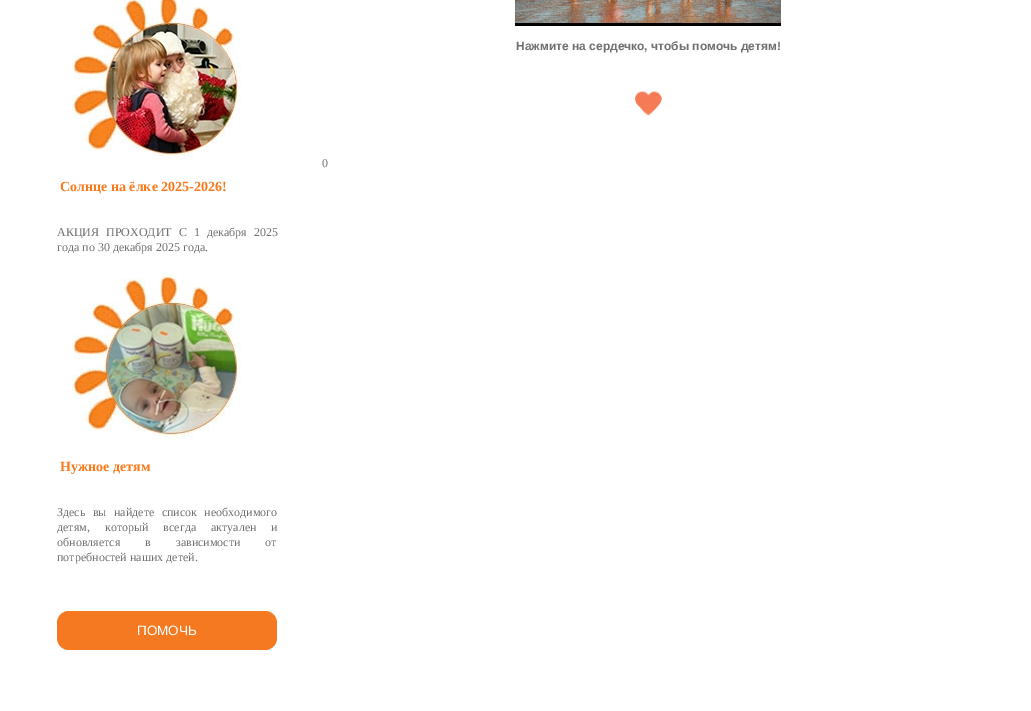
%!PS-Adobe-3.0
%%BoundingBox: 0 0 1031 711
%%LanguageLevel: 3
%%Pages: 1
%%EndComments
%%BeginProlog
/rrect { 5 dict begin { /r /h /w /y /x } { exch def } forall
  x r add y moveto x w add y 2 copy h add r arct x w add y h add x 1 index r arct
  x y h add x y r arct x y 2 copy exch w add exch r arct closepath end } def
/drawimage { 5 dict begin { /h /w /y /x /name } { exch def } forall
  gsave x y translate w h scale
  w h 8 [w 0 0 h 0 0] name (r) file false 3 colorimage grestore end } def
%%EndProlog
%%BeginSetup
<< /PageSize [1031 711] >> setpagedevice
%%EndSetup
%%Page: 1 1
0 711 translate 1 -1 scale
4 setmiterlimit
1 setgray
0 0 1031 711 rectfill
(images/1.raw) 515 0 266 23 drawimage
0 setgray
515 23 266 3 rectfill
(images/2.raw) 634 91 28 25 drawimage
(images/3.raw) 72 0 169 159 drawimage
(images/4.raw) 72 271 169 168 drawimage
0.961 0.475 0.129 setrgbcolor
57 611 220 39 12 rrect fill
/LiberationSans-Bold [12 0 0 -12 0 0] selectfont
0.439 0.439 0.447 setrgbcolor
516 50 moveto (Нажмите на сердечко, чтобы помочь детям!) show
/LiberationSerif-Regular [12 0 0 -12 0 0] selectfont
322 167 moveto (0) show
/LiberationSerif-Bold [14 0 0 -14 0 0] selectfont
0.98 0.475 0.106 setrgbcolor
60 191 moveto (Солнце на ёлке 2025-2026!) show
/LiberationSerif-Regular [12 0 0 -12 0 0] selectfont
0.439 0.439 0.447 setrgbcolor
57 236 moveto 4 0 32 (АКЦИЯ ПРОХОДИТ С 1 декабря 2025) widthshow
57 251 moveto (года по 30 декабря 2025 года.) show
/LiberationSerif-Bold [14 0 0 -14 0 0] selectfont
0.98 0.475 0.106 setrgbcolor
60 471 moveto (Нужное детям) show
/LiberationSerif-Regular [12 0 0 -12 0 0] selectfont
0.439 0.439 0.447 setrgbcolor
57 516 moveto 4.5 0 32 (Здесь вы найдете список необходимого) widthshow
57 531 moveto 12 0 32 (детям, который всегда актуален и) widthshow
57 546 moveto 22 0 32 (обновляется в зависимости от) widthshow
57 561 moveto (потребностей наших детей.) show
/LiberationSans-Regular [13.5 0 0 -13.5 0 0] selectfont
1 setgray
137 635 moveto (ПОМОЧЬ) show
showpage
%%EOF
